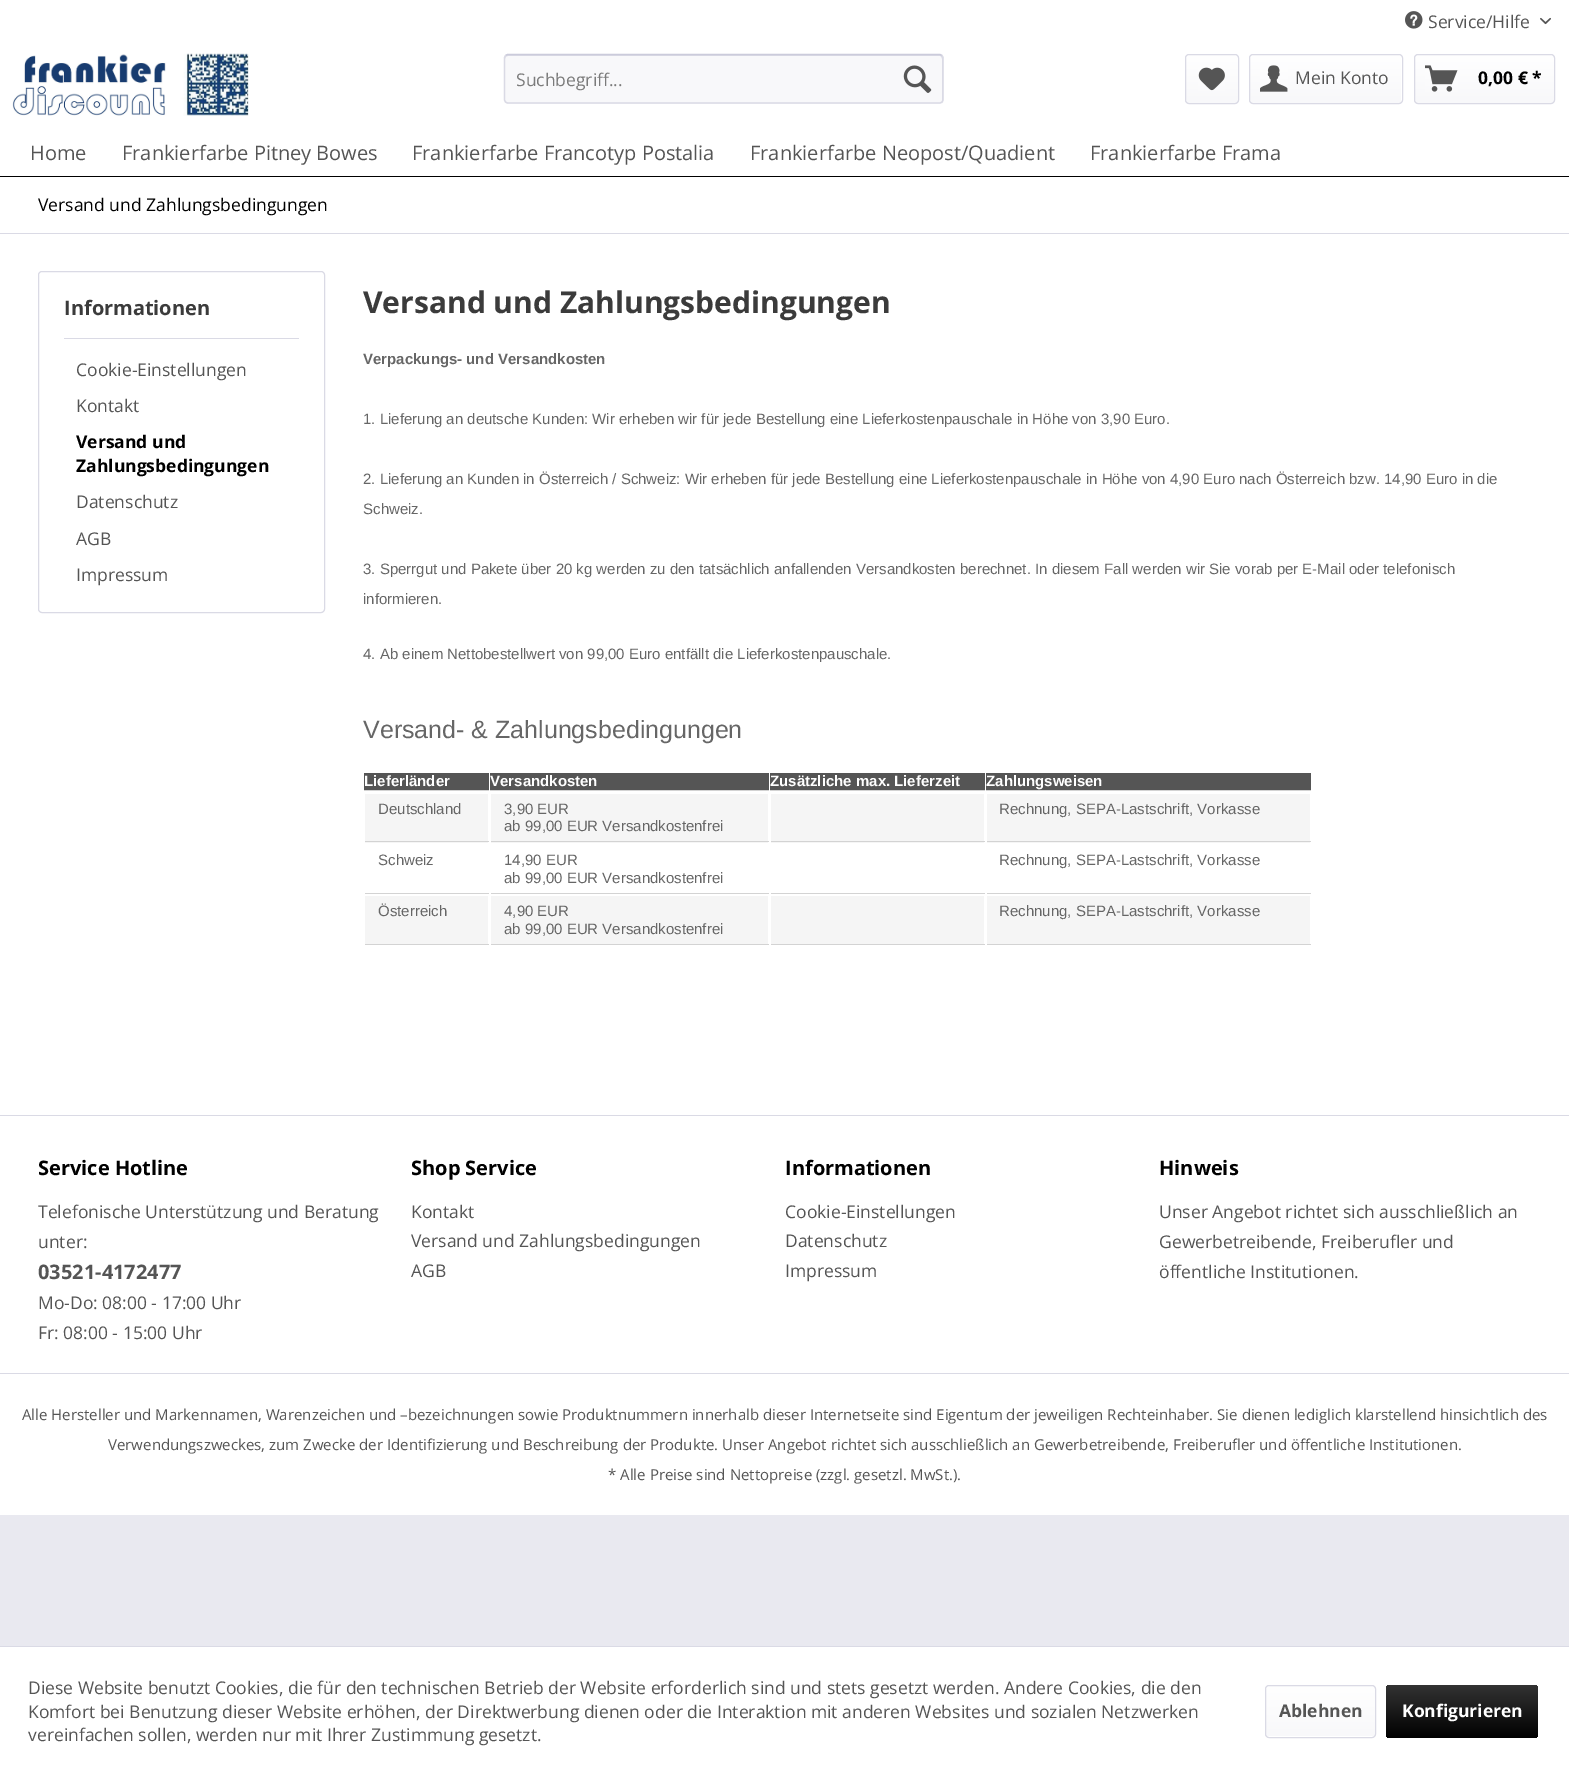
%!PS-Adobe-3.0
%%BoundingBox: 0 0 1569 1773
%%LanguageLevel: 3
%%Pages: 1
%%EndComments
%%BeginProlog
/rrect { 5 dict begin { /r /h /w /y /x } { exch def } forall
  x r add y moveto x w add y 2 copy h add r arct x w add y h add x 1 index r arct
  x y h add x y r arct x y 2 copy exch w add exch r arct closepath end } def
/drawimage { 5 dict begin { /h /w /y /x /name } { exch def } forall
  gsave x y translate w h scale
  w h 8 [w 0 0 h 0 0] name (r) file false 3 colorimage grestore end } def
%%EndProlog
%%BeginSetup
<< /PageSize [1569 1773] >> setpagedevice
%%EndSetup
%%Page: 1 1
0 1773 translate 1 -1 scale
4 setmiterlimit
0.914 0.914 0.941 setrgbcolor
0 0 1569 1773 rectfill
1 setgray
0 0 1569 129 rectfill
(images/1.raw) 1405 11 18 18 drawimage
(images/2.raw) 1540 17 11 8 drawimage
(images/3.raw) 12 53 237 63 drawimage
0.973 0.973 0.98 setrgbcolor
504 54 440 50 4 rrect fill
0.855 0.855 0.898 setrgbcolor
newpath 508 56 moveto 940 56 lineto 941 56 942 57 942 59 curveto 942 103 lineto 942 102 943 101 943 100 curveto 943 58 lineto 943 56 942 55 940 55 curveto 508 55 lineto 506 55 505 56 505 58 curveto 505 59 lineto 505 57 506 56 508 56 curveto closepath fill
0.796 0.796 0.859 setrgbcolor
1.2 setlinewidth
newpath 505.5 55.5 moveto 507.5 54.5 lineto 940 54.5 lineto 942 55.5 lineto stroke
0.855 0.855 0.898 setrgbcolor
newpath 942 55.5 moveto 943 57.5 lineto 943 100 lineto 942 102 lineto 940 103 lineto 507.5 103 lineto 505.5 102 lineto 504.5 100 lineto 504.5 57.5 lineto 505.5 55.5 lineto stroke
(images/4.raw) 903 65 29 28 drawimage
gsave 1186 55 52 48 2.5 rrect clip newpath
<< /ShadingType 2 /ColorSpace /DeviceRGB /Coords [1212 55 1212 103] /Extend [true true] /Function << /FunctionType 2 /Domain [0 1] /C0 [1 1 1] /C1 [0.973 0.973 0.98] /N 1 >> >> shfill grestore
1 setlinewidth
1185.5 54.5 53 49 3.5 rrect stroke
(images/5.raw) 1198 67 27 24 drawimage
gsave 1250 55 151 48 2.5 rrect clip newpath
<< /ShadingType 2 /ColorSpace /DeviceRGB /Coords [1326 55 1326 103] /Extend [true true] /Function << /FunctionType 2 /Domain [0 1] /C0 [1 1 1] /C1 [0.973 0.973 0.98] /N 1 >> >> shfill grestore
1249.5 54.5 153 49 3.5 rrect stroke
(images/6.raw) 1260 65 28 27 drawimage
gsave 1415 55 139 48 2.5 rrect clip newpath
<< /ShadingType 2 /ColorSpace /DeviceRGB /Coords [1484 55 1484 103] /Extend [true true] /Function << /FunctionType 2 /Domain [0 1] /C0 [1 1 1] /C1 [0.973 0.973 0.98] /N 1 >> >> shfill grestore
1414.5 54.5 140 49 3.5 rrect stroke
(images/7.raw) 1425 65 33 27 drawimage
1 setgray
0 129 1569 986 rectfill
0 setgray
0 176 1569 1 rectfill
0.855 0.855 0.898 setrgbcolor
0 233 1569 1 rectfill
38.5 271.5 286 341 3.5 rrect stroke
64 338 235 1 rectfill
0.333 setgray
364 773 125 17 rectfill
0.827 setgray
364 790 125 1 rectfill
0.333 setgray
490 773 279 17 rectfill
0.827 setgray
490 790 279 1 rectfill
0.333 setgray
770 773 215 17 rectfill
0.827 setgray
770 790 215 1 rectfill
0.333 setgray
986 773 325 17 rectfill
0.827 setgray
986 790 325 1 rectfill
0.961 setgray
365 794 123 49 rectfill
0.827 setgray
364 841 125 1 rectfill
1 setgray
364 841 1 2 rectfill
0.961 setgray
491 794 277 49 rectfill
0.827 setgray
490 841 279 1 rectfill
1 setgray
490 841 1 2 rectfill
0.961 setgray
771 794 213 49 rectfill
0.827 setgray
770 841 215 1 rectfill
1 setgray
770 841 1 2 rectfill
0.961 setgray
987 794 323 49 rectfill
0.827 setgray
986 841 325 1 rectfill
1 setgray
986 841 1 2 rectfill
0.827 setgray
364 893 125 1 rectfill
1 setgray
364 893 1 1 rectfill
0.827 setgray
490 893 279 1 rectfill
1 setgray
490 893 1 1 rectfill
0.827 setgray
986 893 325 1 rectfill
1 setgray
986 893 1 1 rectfill
0.827 setgray
770 893 215 1 rectfill
1 setgray
770 893 1 1 rectfill
0.961 setgray
365 896 123 48 rectfill
0.827 setgray
364 944 125 1 rectfill
1 setgray
364 944 1 1 rectfill
0.961 setgray
491 896 277 48 rectfill
0.827 setgray
490 944 279 1 rectfill
1 setgray
490 944 1 1 rectfill
0.961 setgray
771 896 213 48 rectfill
0.827 setgray
770 944 215 1 rectfill
1 setgray
770 944 1 1 rectfill
0.961 setgray
987 896 323 48 rectfill
0.827 setgray
986 944 325 1 rectfill
1 setgray
986 944 1 1 rectfill
0 1116 1569 399 rectfill
0.855 0.855 0.898 setrgbcolor
0 1115 1569 1 rectfill
0 1373 1569 1 rectfill
1 setgray
0 1647 1569 126 rectfill
0.855 0.855 0.898 setrgbcolor
0 1646 1569 1 rectfill
gsave 1266 1686 109 50 2.5 rrect clip newpath
<< /ShadingType 2 /ColorSpace /DeviceRGB /Coords [1321 1686 1321 1736] /Extend [true true] /Function << /FunctionType 2 /Domain [0 1] /C0 [1 1 1] /C1 [0.973 0.973 0.98] /N 1 >> >> shfill grestore
1265.5 1685.5 110 52 3.5 rrect stroke
gsave 1386 1685 152 53 4 rrect clip newpath
<< /ShadingType 2 /ColorSpace /DeviceRGB /Coords [1462 1685 1462 1738] /Extend [true true] /Function << /FunctionType 2 /Domain [0 1] /C0 [0.2 0.2 0.2] /C1 [0 0 0] /N 1 >> >> shfill grestore
/OpenSans-Regular [17.5 0 0 -17.5 0 0] selectfont
0.333 setgray
1428 28 moveto (Service/Hilfe) show
0.482 setgray
516 86 moveto (Suchbegriff...) show
0.333 setgray
1295 84 moveto (Mein Konto) show
/OpenSans-Bold [17.5 0 0 -17.5 0 0] selectfont
0 setgray
1478 84 moveto (0,00 € *) show
/OpenSans-Regular [20 0 0 -20 0 0] selectfont
0.333 setgray
30 160 moveto (Home) show
122 160 moveto (Frankierfarbe Pitney Bowes) show
412 160 moveto (Frankierfarbe Francotyp Postalia) show
750 160 moveto (Frankierfarbe Neopost/Quadient) show
1090 160 moveto (Frankierfarbe Frama) show
/OpenSans-Regular [17.5 0 0 -17.5 0 0] selectfont
0 setgray
38 211 moveto (Versand und Zahlungsbedingungen) show
/OpenSans-Bold [20 0 0 -20 0 0] selectfont
0.231 setgray
64 315 moveto (Informationen) show
/OpenSans-Regular [17.5 0 0 -17.5 0 0] selectfont
0.333 setgray
76 376 moveto (Cookie-Einstellungen) show
76 412 moveto (Kontakt) show
/OpenSans-Bold [17.5 0 0 -17.5 0 0] selectfont
0 setgray
76 448 moveto (Versand und) show
76 472 moveto (Zahlungsbedingungen) show
/OpenSans-Regular [17.5 0 0 -17.5 0 0] selectfont
0.333 setgray
76 508 moveto (Datenschutz) show
76 545 moveto (AGB) show
76 581 moveto (Impressum) show
/OpenSans-Bold [30 0 0 -30 0 0] selectfont
0.231 setgray
363 313 moveto (Versand und Zahlungsbedingungen) show
/LiberationSans-Bold [15 0 0 -15 0 0] selectfont
0.4 setgray
363 364 moveto (Verpackungs- und Versandkosten) show
/LiberationSans-Regular [15 0 0 -15 0 0] selectfont
363 424 moveto (1. Lieferung an deutsche Kunden: Wir erheben wir für jede Bestellung eine Lieferkostenpauschale in Höhe von 3,90 Euro.) show
363 484 moveto (2. Lieferung an Kunden in Österreich / Schweiz: Wir erheben für jede Bestellung eine Lieferkostenpauschale in Höhe von 4,90 Euro nach Österreich bzw. 14,90 Euro in die) show
363 514 moveto (Schweiz.) show
363 574 moveto (3. Sperrgut und Pakete über 20 kg werden zu den tatsächlich anfallenden Versandkosten berechnet. In diesem Fall werden wir Sie vorab per E-Mail oder telefonisch) show
363 604 moveto (informieren.) show
363 659 moveto (4. Ab einem Nettobestellwert von 99,00 Euro entfällt die Lieferkostenpauschale.) show
/LiberationSans-Regular [25 0 0 -25 0 0] selectfont
363 738 moveto (Versand- & Zahlungsbedingungen) show
/LiberationSans-Bold [15 0 0 -15 0 0] selectfont
1 setgray
364 786 moveto (Lieferländer) show
490 786 moveto (Versandkosten) show
770 786 moveto (Zusätzliche max. Lieferzeit) show
986 786 moveto (Zahlungsweisen) show
/LiberationSans-Regular [15 0 0 -15 0 0] selectfont
0.4 setgray
378 814 moveto (Deutschland) show
504 814 moveto (3,90 EUR) show
504 831 moveto (ab 99,00 EUR Versandkostenfrei) show
999 814 moveto (Rechnung, SEPA-Lastschrift, Vorkasse) show
378 865 moveto (Schweiz) show
504 865 moveto (14,90 EUR) show
504 883 moveto (ab 99,00 EUR Versandkostenfrei) show
999 865 moveto (Rechnung, SEPA-Lastschrift, Vorkasse) show
378 916 moveto (Österreich) show
504 916 moveto (4,90 EUR) show
504 934 moveto (ab 99,00 EUR Versandkostenfrei) show
999 916 moveto (Rechnung, SEPA-Lastschrift, Vorkasse) show
/OpenSans-Bold [20 0 0 -20 0 0] selectfont
0 setgray
38 1175 moveto (Service Hotline) show
/OpenSans-Regular [17.5 0 0 -17.5 0 0] selectfont
0.333 setgray
38 1218 moveto (Telefonische Unterstützung und Beratung) show
38 1248 moveto (unter:) show
/OpenSans-Bold [20 0 0 -20 0 0] selectfont
38 1279 moveto (03521-4172477) show
/OpenSans-Regular [17.5 0 0 -17.5 0 0] selectfont
38 1309 moveto (Mo-Do: 08:00 - 17:00 Uhr) show
38 1339 moveto (Fr: 08:00 - 15:00 Uhr) show
/OpenSans-Bold [20 0 0 -20 0 0] selectfont
0 setgray
411 1175 moveto (Shop Service) show
/OpenSans-Regular [17.5 0 0 -17.5 0 0] selectfont
0.333 setgray
411 1218 moveto (Kontakt) show
411 1247 moveto (Versand und Zahlungsbedingungen) show
411 1277 moveto (AGB) show
/OpenSans-Bold [20 0 0 -20 0 0] selectfont
0 setgray
785 1175 moveto (Informationen) show
/OpenSans-Regular [17.5 0 0 -17.5 0 0] selectfont
0.333 setgray
785 1218 moveto (Cookie-Einstellungen) show
785 1247 moveto (Datenschutz) show
785 1277 moveto (Impressum) show
/OpenSans-Bold [20 0 0 -20 0 0] selectfont
0 setgray
1159 1175 moveto (Hinweis) show
/OpenSans-Regular [17.5 0 0 -17.5 0 0] selectfont
0.333 setgray
1159 1218 moveto (Unser Angebot richtet sich ausschließlich an) show
1159 1248 moveto (Gewerbetreibende, Freiberufler und) show
1159 1278 moveto (öffentliche Institutionen.) show
/OpenSans-Regular [15 0 0 -15 0 0] selectfont
22 1420 moveto (Alle Hersteller und Markennamen, Warenzeichen und –bezeichnungen sowie Produktnummern innerhalb dieser Internetseite sind Eigentum der jeweiligen Rechteinhaber. Sie dienen lediglich klarstellend hinsichtlich des) show
108 1450 moveto (Verwendungszweckes, zum Zwecke der Identifizierung und Beschreibung der Produkte. Unser Angebot richtet sich ausschließlich an Gewerbetreibende, Freiberufler und öffentliche Institutionen.) show
608 1480 moveto (* Alle Preise sind Nettopreise \(zzgl. gesetzl. MwSt.\).) show
/OpenSans-Regular [17.5 0 0 -17.5 0 0] selectfont
28 1694 moveto (Diese Website benutzt Cookies, die für den technischen Betrieb der Website erforderlich sind und stets gesetzt werden. Andere Cookies, die den) show
28 1718 moveto (Komfort bei Benutzung dieser Website erhöhen, der Direktwerbung dienen oder die Interaktion mit anderen Websites und sozialen Netzwerken) show
28 1741 moveto (vereinfachen sollen, werden nur mit Ihrer Zustimmung gesetzt.) show
/OpenSans-Bold [17.5 0 0 -17.5 0 0] selectfont
1279 1717 moveto (Ablehnen) show
1 setgray
1402 1717 moveto (Konfigurieren) show
showpage
%%EOF
